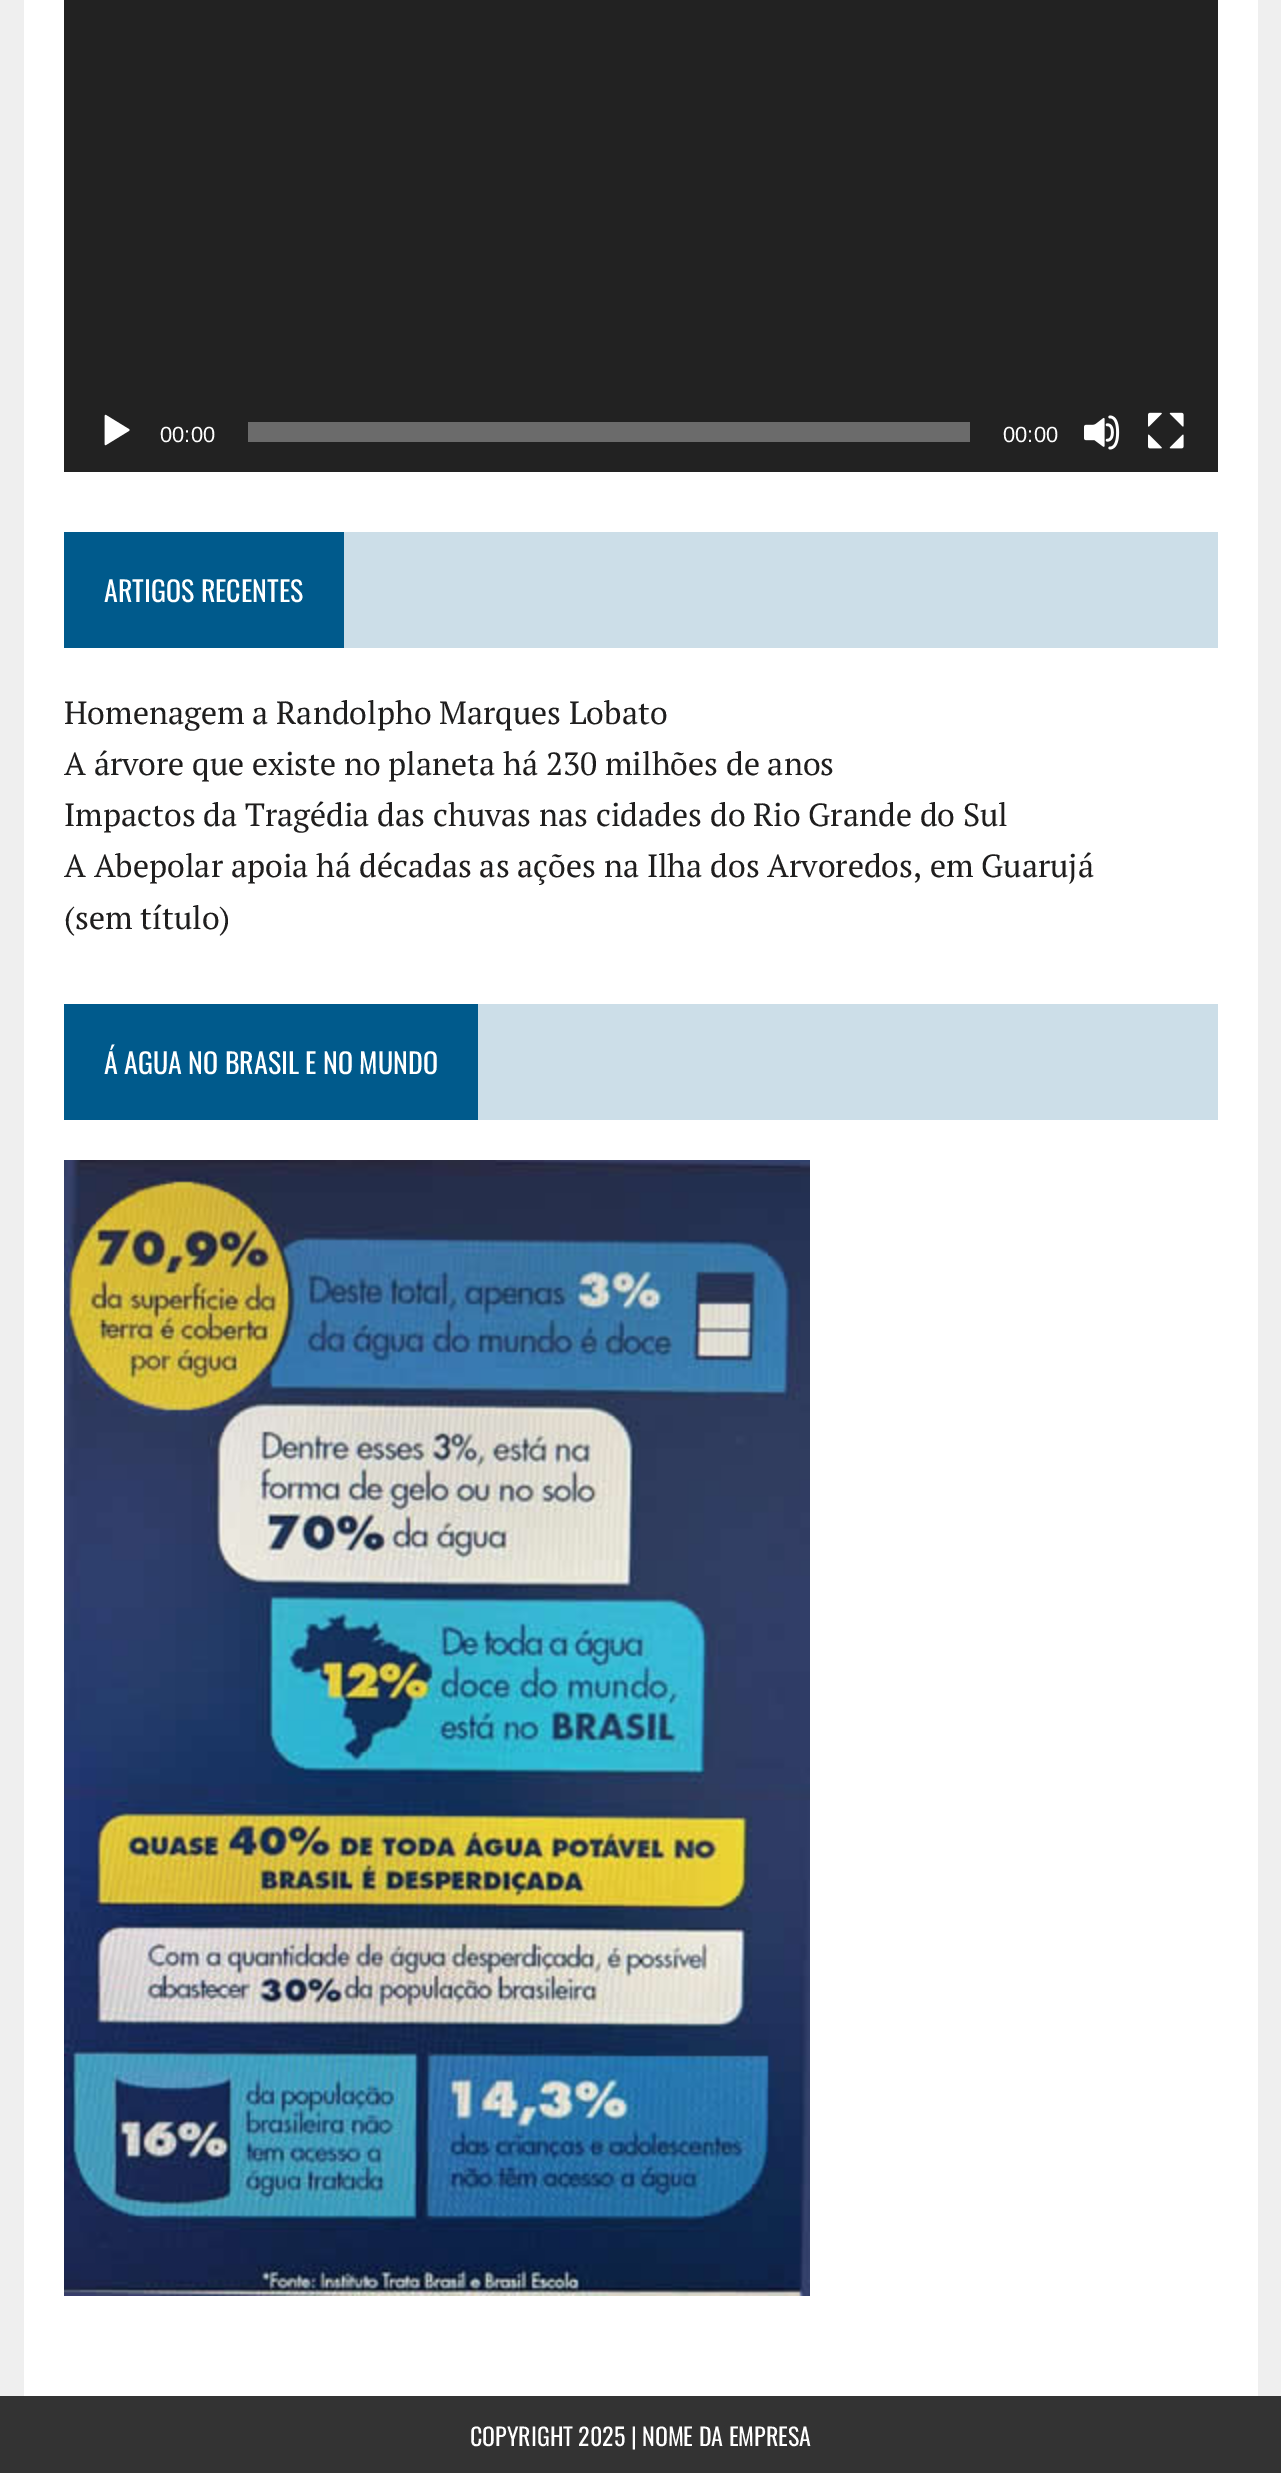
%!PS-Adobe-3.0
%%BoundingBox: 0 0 1281 2473
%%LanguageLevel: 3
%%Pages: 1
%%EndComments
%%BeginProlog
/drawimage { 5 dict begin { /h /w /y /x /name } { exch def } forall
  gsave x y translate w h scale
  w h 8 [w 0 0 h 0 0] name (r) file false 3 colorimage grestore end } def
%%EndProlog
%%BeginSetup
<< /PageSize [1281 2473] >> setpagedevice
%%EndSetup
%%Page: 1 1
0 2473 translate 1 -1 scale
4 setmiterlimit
0.937 setgray
0 0 1281 2473 rectfill
1 setgray
24 0 1234 2396 rectfill
0.133 setgray
64 0 1154 472 rectfill
(images/1.raw) 104 414 26 32 drawimage
0.42 setgray
248 422 722 20 rectfill
(images/2.raw) 1084 415 36 35 drawimage
(images/3.raw) 1148 412 36 37 drawimage
0.8 0.871 0.91 setrgbcolor
344 532 874 116 rectfill
0 0.353 0.549 setrgbcolor
64 532 280 116 rectfill
0.8 0.871 0.91 setrgbcolor
478 1004 740 116 rectfill
0 0.353 0.549 setrgbcolor
64 1004 414 116 rectfill
(images/4.raw) 64 1160 746 1136 drawimage
0.2 setgray
0 2396 1281 77 rectfill
/LiberationSans-Regular [22 0 0 -22 0 0] selectfont
1 setgray
160 442 moveto (00:00) show
1003 442 moveto (00:00) show
/Oswald-Regular [28 0 0 -28 0 0] selectfont
104 602 moveto (ARTIGOS RECENTES) show
/PTSerif-Regular [32 0 0 -32 0 0] selectfont
0.122 0.118 0.118 setrgbcolor
64 724 moveto (Homenagem a Randolpho Marques Lobato) show
64 775 moveto (A árvore que existe no planeta há 230 milhões de anos) show
64 826 moveto (Impactos da Tragédia das chuvas nas cidades do Rio Grande do Sul) show
64 877 moveto (A Abepolar apoia há décadas as ações na Ilha dos Arvoredos, em Guarujá) show
64 929 moveto (\(sem título\)) show
/Oswald-Regular [28 0 0 -28 0 0] selectfont
1 setgray
104 1074 moveto (Á AGUA NO BRASIL E NO MUNDO) show
/Oswald-Regular [24 0 0 -24 0 0] selectfont
470 2446 moveto (COPYRIGHT 2025 | NOME DA EMPRESA) show
showpage
%%EOF
